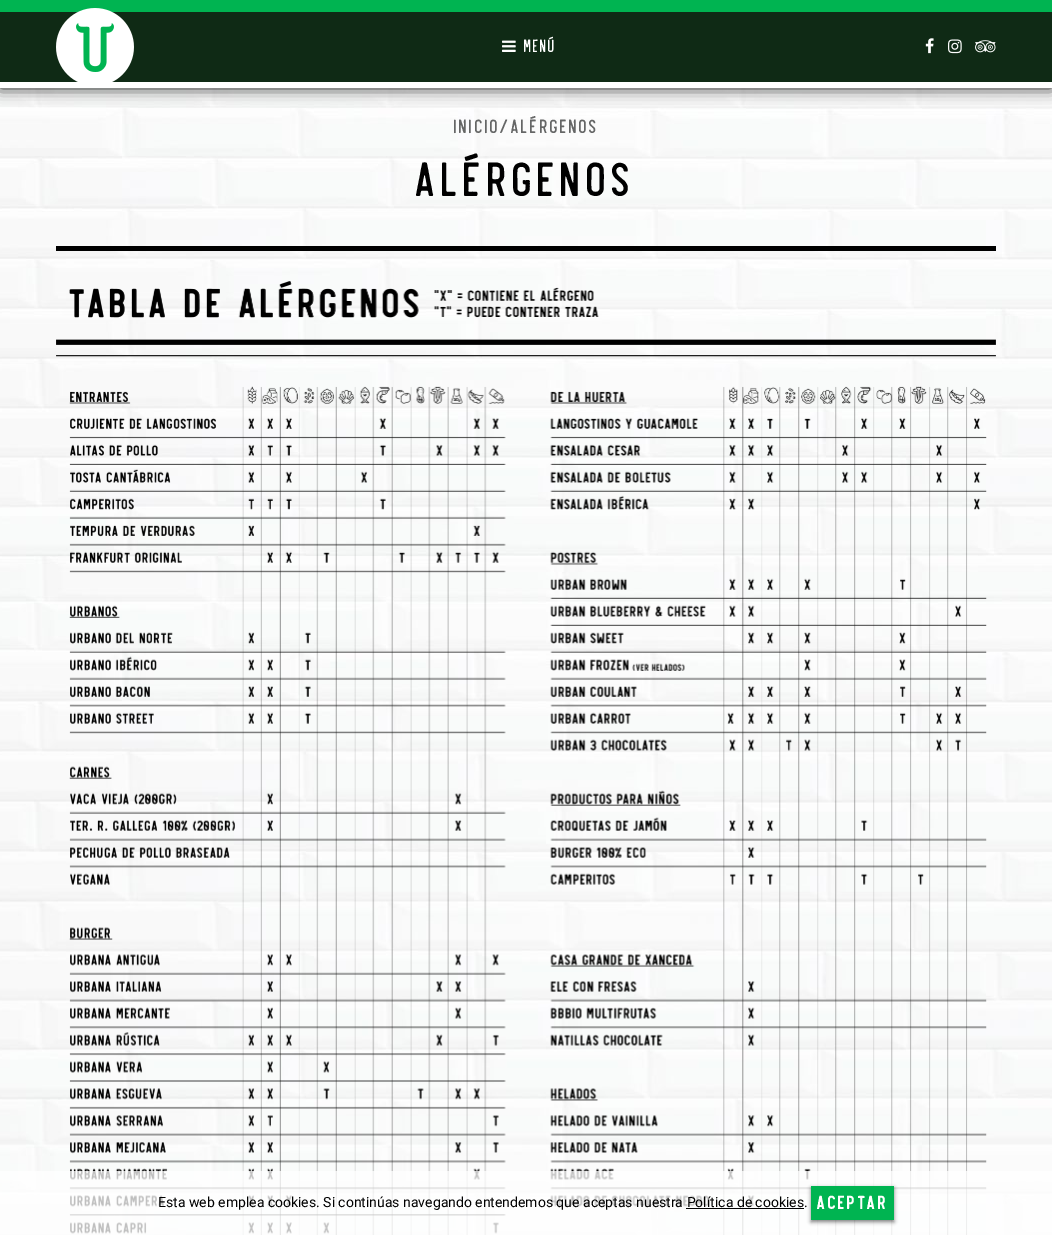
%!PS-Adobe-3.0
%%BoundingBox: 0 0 1052 1235
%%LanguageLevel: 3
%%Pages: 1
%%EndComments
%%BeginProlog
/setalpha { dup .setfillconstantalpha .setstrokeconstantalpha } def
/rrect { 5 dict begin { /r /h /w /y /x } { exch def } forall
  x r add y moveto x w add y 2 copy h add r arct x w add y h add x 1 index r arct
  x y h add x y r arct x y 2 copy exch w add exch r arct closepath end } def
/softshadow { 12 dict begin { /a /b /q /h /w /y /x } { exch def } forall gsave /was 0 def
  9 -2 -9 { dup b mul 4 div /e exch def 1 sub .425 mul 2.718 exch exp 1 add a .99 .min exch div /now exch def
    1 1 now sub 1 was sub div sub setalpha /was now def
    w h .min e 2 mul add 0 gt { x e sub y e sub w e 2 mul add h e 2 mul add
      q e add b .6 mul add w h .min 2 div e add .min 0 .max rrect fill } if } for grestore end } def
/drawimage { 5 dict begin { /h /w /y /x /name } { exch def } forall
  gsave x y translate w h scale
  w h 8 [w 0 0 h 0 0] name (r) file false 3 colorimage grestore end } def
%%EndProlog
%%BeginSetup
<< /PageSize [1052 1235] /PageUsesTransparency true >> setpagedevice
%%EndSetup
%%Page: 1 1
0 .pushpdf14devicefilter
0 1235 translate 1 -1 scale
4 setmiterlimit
1 setgray
0 0 1052 1235 rectfill
(images/6.raw) 0 88 1052 1147 drawimage
0 setgray
0 0 1052 88 0 7.5 0.9 softshadow
0.059 0.165 0.082 setrgbcolor
0 12 1052 70 rectfill
0 0.706 0.318 setrgbcolor
0 0 1052 12 rectfill
1 setgray
0 82 1052 6 rectfill
(images/1.raw) 56 8 78 74 drawimage
(images/2.raw) 502 40 14 12 drawimage
(images/3.raw) 925 38 9 16 drawimage
(images/4.raw) 948 39 14 15 drawimage
(images/5.raw) 975 40 21 13 drawimage
0 setgray
56 246 940 5 rectfill
(images/7.raw) 56 281 940 954 drawimage
0.75 setalpha
1 setgray
0 1171 1052 64 rectfill
1 setalpha
0 setgray
811 1188 83 34 0 2 0.5 softshadow
0 0.706 0.318 setrgbcolor
811 1186 83 34 rectfill
0 setgray
686 1208 118 1 rectfill
/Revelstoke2-Regular [16 0 0 -16 0 0] selectfont
1 setgray
524 52 moveto (MENÚ) show
/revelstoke-Regular [20 0 0 -20 0 0] selectfont
0.396 0.4 0.4 setrgbcolor
454 133 moveto (Inicio/Alérgenos) show
/revelstoke-Regular [50 0 0 -50 0 0] selectfont
0 setgray
416 196 moveto (Alérgenos) show
/Roboto-Regular [14 0 0 -14 0 0] selectfont
158 1207 moveto (Esta web emplea cookies. Si continúas navegando entendemos que aceptas nuestra Política de cookies.) show
/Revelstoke-Bold [20 0 0 -20 0 0] selectfont
1 setgray
817 1209 moveto (Aceptar) show
.poppdf14devicefilter showpage
%%EOF
